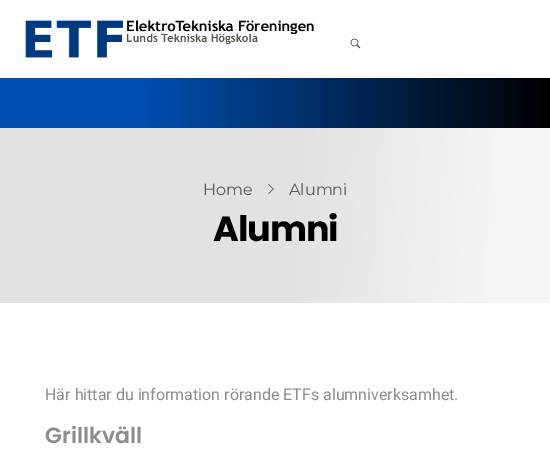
%!PS-Adobe-3.0
%%BoundingBox: 0 0 550 450
%%LanguageLevel: 3
%%Pages: 1
%%EndComments
%%BeginProlog
/drawimage { 5 dict begin { /h /w /y /x /name } { exch def } forall
  gsave x y translate w h scale
  w h 8 [w 0 0 h 0 0] name (r) file false 3 colorimage grestore end } def
%%EndProlog
%%BeginSetup
<< /PageSize [550 450] >> setpagedevice
%%EndSetup
%%Page: 1 1
0 450 translate 1 -1 scale
4 setmiterlimit
1 setgray
0 0 550 450 rectfill
(images/1.raw) 25 20 289 38 drawimage
(images/2.raw) 350 38 11 11 drawimage
gsave newpath 0 78 moveto 550 78 lineto 550 128 lineto 0 128 lineto closepath clip newpath
<< /ShadingType 2 /ColorSpace /DeviceRGB /Coords [0 103 550 103] /Extend [true true] /Function << /FunctionType 3 /Domain [0 1] /Functions [<< /FunctionType 2 /Domain [0 1] /C0 [0 0.314 0.702] /C1 [0 0.314 0.702] /N 1 >> << /FunctionType 2 /Domain [0 1] /C0 [0 0.314 0.702] /C1 [0 0 0] /N 1 >>] /Bounds [0.24] /Encode [0 1 0 1] >> >> shfill grestore
gsave newpath 0 128 moveto 550 128 lineto 550 303 lineto 0 303 lineto closepath clip newpath
<< /ShadingType 2 /ColorSpace /DeviceRGB /Coords [-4.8 196 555 235] /Extend [true true] /Function << /FunctionType 3 /Domain [0 1] /Functions [<< /FunctionType 2 /Domain [0 1] /C0 [0.886 0.886 0.886] /C1 [0.886 0.886 0.886] /N 1 >> << /FunctionType 2 /Domain [0 1] /C0 [0.886 0.886 0.886] /C1 [0.961 0.961 0.961] /N 1 >> << /FunctionType 2 /Domain [0 1] /C0 [0.961 0.961 0.961] /C1 [0.961 0.961 0.961] /N 1 >>] /Bounds [0.52 0.89] /Encode [0 1 0 1 0 1] >> >> shfill grestore
(images/3.raw) 268 184 6 10 drawimage
/Montserrat-Regular [16 0 0 -16 0 0] selectfont
0.353 setgray
203 195 moveto (Home) show
289 195 moveto (Alumni) show
/Poppins-Bold [35 0 0 -35 0 0] selectfont
0 setgray
213 241 moveto -1 0 (Alumni) ashow
/Roboto-Regular [16 0 0 -16 0 0] selectfont
0.549 setgray
45 400 moveto (Här hittar du information rörande ETFs alumniverksamhet.) show
/Poppins-SemiBold [22 0 0 -22 0 0] selectfont
45 443 moveto (Grillkväll) show
showpage
%%EOF
